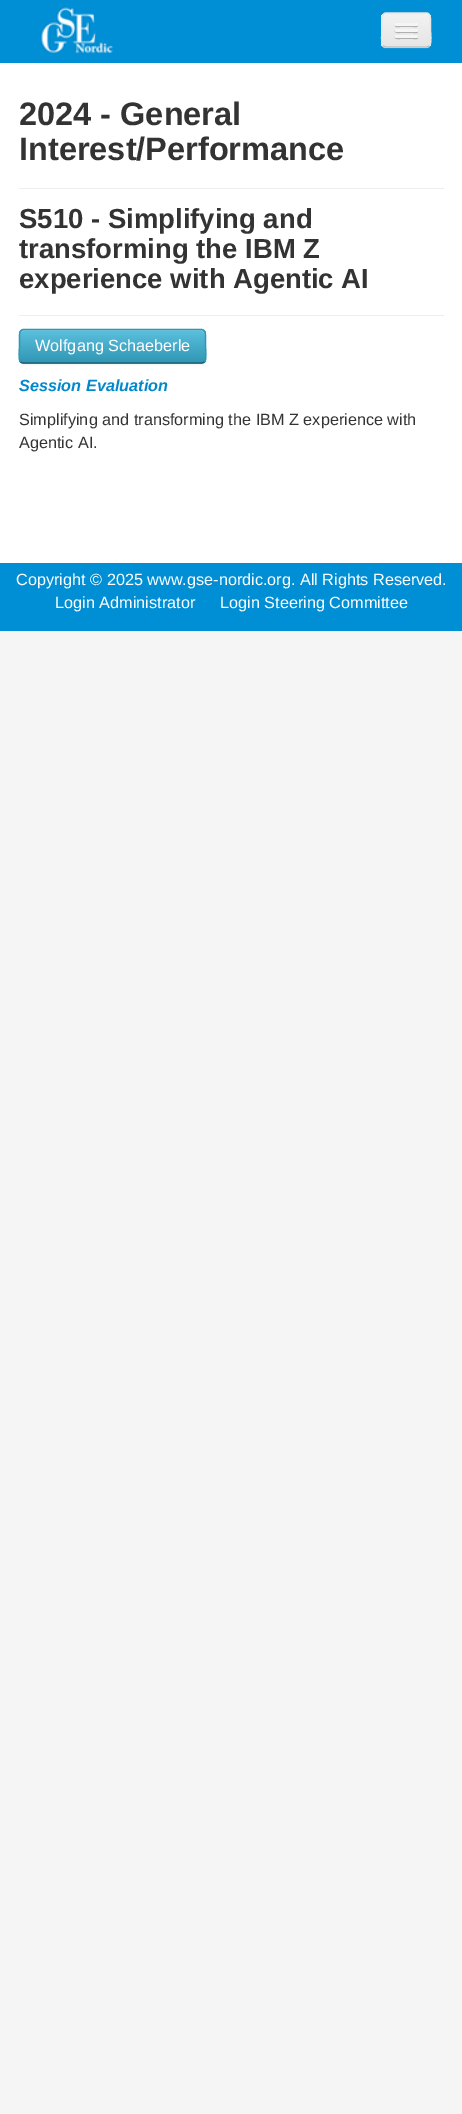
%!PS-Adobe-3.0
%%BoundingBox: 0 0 462 2114
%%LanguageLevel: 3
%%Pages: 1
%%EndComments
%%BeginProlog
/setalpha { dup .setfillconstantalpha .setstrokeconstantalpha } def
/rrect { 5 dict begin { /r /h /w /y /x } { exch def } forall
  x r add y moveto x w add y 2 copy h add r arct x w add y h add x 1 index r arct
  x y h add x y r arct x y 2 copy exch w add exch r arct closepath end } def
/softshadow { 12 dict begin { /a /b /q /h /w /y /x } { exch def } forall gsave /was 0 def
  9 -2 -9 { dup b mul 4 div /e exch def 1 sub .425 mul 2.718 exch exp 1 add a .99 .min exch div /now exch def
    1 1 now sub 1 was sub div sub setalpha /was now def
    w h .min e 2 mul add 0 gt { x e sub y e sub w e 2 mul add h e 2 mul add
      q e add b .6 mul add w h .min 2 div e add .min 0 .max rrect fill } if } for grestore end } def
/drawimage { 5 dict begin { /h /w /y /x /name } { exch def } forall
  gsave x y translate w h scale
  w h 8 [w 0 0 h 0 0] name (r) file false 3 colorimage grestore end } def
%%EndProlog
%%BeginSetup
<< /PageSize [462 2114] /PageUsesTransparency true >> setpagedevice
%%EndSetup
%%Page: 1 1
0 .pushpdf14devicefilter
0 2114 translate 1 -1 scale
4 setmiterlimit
0.961 setgray
0 0 462 2114 rectfill
0 0.561 0.831 setrgbcolor
0 0 462 63 rectfill
(images/1.raw) 40 6 73 48 drawimage
0.075 0.592 0.843 setrgbcolor
newpath 381 17 moveto 381 44 lineto 381 47 383 49 386 49 curveto 426 49 lineto 429 49 431 47 431 44 curveto 430 46 428 48 426 48 curveto 386 48 lineto 383 48 381 45 381 42 curveto closepath fill
0.929 setgray
381 13 50 35 5 rrect fill
gsave
381 13 50 35 5 rrect clip newpath
gsave newpath 381 14 moveto 431 14 lineto 431 46 lineto 381 46 lineto closepath clip newpath
<< /ShadingType 2 /ColorSpace /DeviceRGB /Coords [406 14 406 46] /Extend [true true] /Function << /FunctionType 2 /Domain [0 1] /C0 [0.949 0.949 0.949] /C1 [0.902 0.902 0.902] /N 1 >> >> shfill grestore
grestore
0.749 setgray
1.2 setlinewidth
newpath 429.5 45.5 moveto 428.5 46.5 427.5 47 426 47 curveto 386 47 lineto 385 47 384 46.5 383 45.5 curveto stroke
0.902 setgray
newpath 383 45.5 moveto 380.5 43 382 33 382 30 curveto 382 21.5 lineto 382 18.5 381.5 14 385.5 13 curveto 427 13 lineto 431 14 430.5 18.5 430.5 21.5 curveto 430.5 30 lineto 430.5 33 432 43 429.5 45.5 curveto stroke
0.698 setgray
newpath 395.5 24.5 moveto 395 26 lineto 395.5 28 399 27 400 27 curveto 413 27 lineto 414.5 27 418 28 418 25.5 curveto 417.5 24.5 lineto 416.5 25 lineto 414.5 25.5 396 25.5 395.5 24.5 curveto closepath fill
0.961 setgray
395 23 23 3 1.5 rrect fill
0.69 setgray
newpath 395 30.5 moveto 393.5 33.5 399.5 33 400 33 curveto 413 33 lineto 414 33 417.5 34 418 32 curveto 418 31.5 418 30.5 417.5 30.5 curveto 416.5 31 lineto 396 31 lineto closepath fill
0.961 setgray
395 29 23 3 1.5 rrect fill
0.686 setgray
newpath 395 37 moveto 394 39.5 399 39 400 39 curveto 413 39 lineto 414 39 417.5 40 418 38 curveto 418 37.5 418 36.5 417.5 36.5 curveto 417.5 37 417 37.5 416 37.5 curveto 396 37.5 lineto 396 37.5 395.5 37 395 37 curveto closepath fill
0.961 setgray
395 35 23 3 1.5 rrect fill
1 setgray
0 63 462 500 rectfill
0.933 setgray
19 188 425 1 rectfill
19 315 425 1 rectfill
0 setgray
19 330 187 35 5 1 0.05 softshadow
0.286 0.686 0.804 setrgbcolor
19 329 187 35 5 rrect fill
gsave
19 329 187 35 5 rrect clip newpath
gsave newpath 19 330 moveto 206 330 lineto 206 363 lineto 19 363 lineto closepath clip newpath
<< /ShadingType 2 /ColorSpace /DeviceRGB /Coords [113 330 113 363] /Extend [true true] /Function << /FunctionType 2 /Domain [0 1] /C0 [0.357 0.753 0.871] /C1 [0.184 0.588 0.706] /N 1 >> >> shfill grestore
grestore
0.482 0.8 0.894 setrgbcolor
newpath 24 331 moveto 201 331 lineto 203 331 205 333 205 335 curveto 205 332 204 330 201 330 curveto 23 330 lineto 21 331 20 333 20 335 curveto 20 333 22 331 24 331 curveto closepath fill
0.122 0.388 0.467 setrgbcolor
newpath 204.5 362 moveto 203.5 362.5 202.5 363 201 363 curveto 24 363 lineto 22.5 363 21.5 362.5 20.5 362 curveto stroke
0.184 0.588 0.706 setrgbcolor
newpath 20.5 362 moveto 18 359.5 19.5 349.5 19.5 346 curveto 19.5 338 lineto 19.5 334.5 19 329.5 24 329.5 curveto 201 329.5 lineto 206 329.5 205.5 334.5 205.5 338 curveto 205.5 346 lineto 205.5 349.5 207 359.5 204.5 362 curveto stroke
0 0.561 0.831 setrgbcolor
0 563 462 68 rectfill
/LiberationSans-Bold [32.5 0 0 -32.5 0 0] selectfont
0.2 setgray
19 125 moveto (2024 - General) show
19 160 moveto (Interest/Performance) show
/LiberationSans-Bold [27.5 0 0 -27.5 0 0] selectfont
19 228 moveto (S510 - Simplifying and) show
19 258 moveto (transforming the IBM Z) show
19 288 moveto (experience with Agentic AI) show
/LiberationSans-Regular [16.25 0 0 -16.25 0 0] selectfont
1 setgray
35 351 moveto (Wolfgang Schaeberle) show
/LiberationSans-BoldItalic [16.25 0 0 -16.25 0 0] selectfont
0 0.533 0.8 setrgbcolor
19 391 moveto (Session Evaluation) show
/LiberationSans-Regular [16.25 0 0 -16.25 0 0] selectfont
0.2 setgray
19 425 moveto (Simplifying and transforming the IBM Z experience with) show
19 448 moveto (Agentic AI.) show
1 setgray
16 585 moveto (Copyright © 2025 www.gse-nordic.org. All Rights Reserved.) show
55 608 moveto (Login Administrator) show
220 608 moveto (Login Steering Committee) show
.poppdf14devicefilter showpage
%%EOF
